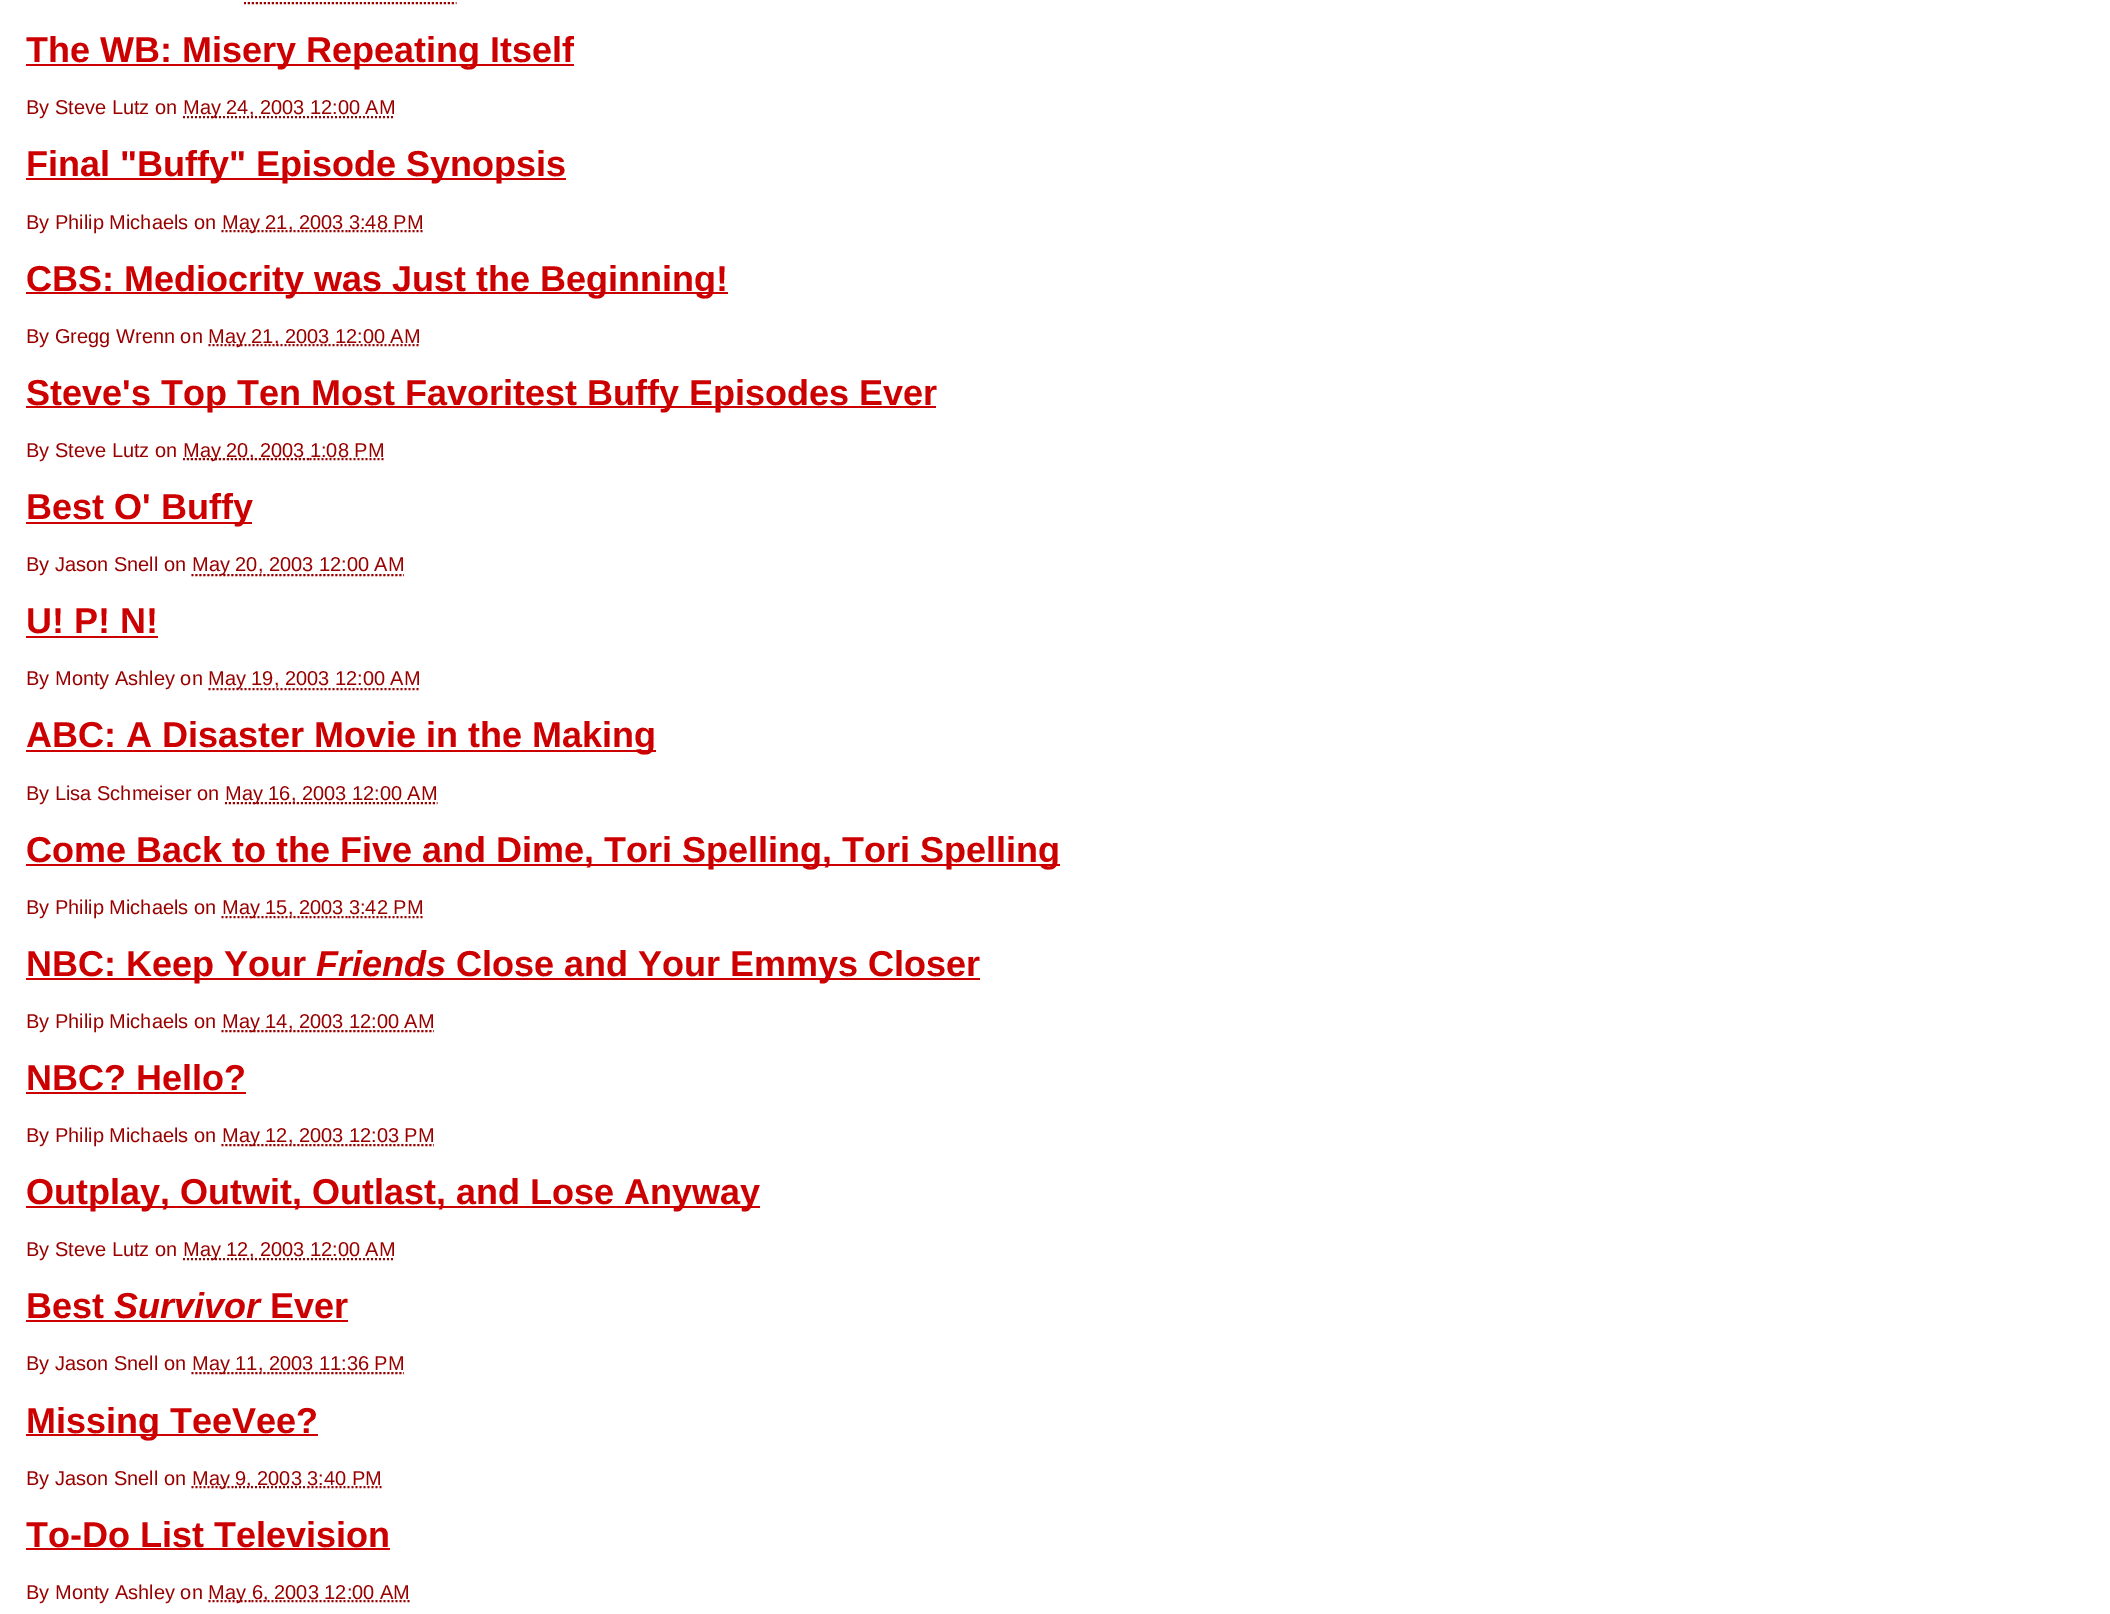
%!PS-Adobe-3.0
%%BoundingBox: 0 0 2110 1614
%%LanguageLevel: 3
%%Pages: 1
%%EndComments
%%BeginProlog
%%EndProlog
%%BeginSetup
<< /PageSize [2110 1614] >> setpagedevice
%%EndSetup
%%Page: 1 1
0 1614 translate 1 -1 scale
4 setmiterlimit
1 setgray
0 0 2110 1614 rectfill
0.6 0 0 setrgbcolor
2 setlinewidth
[2 2] 0 setdash
newpath 244 3 moveto 456.5 3 lineto stroke
0.8 0 0 setrgbcolor
26 64 548 2 rectfill
0.6 0 0 setrgbcolor
newpath 183 117 moveto 395 117 lineto stroke
0.8 0 0 setrgbcolor
26 178 540 2 rectfill
0.6 0 0 setrgbcolor
newpath 221.5 231 moveto 348.5 231 lineto stroke
newpath 348.5 231 moveto 423 231 lineto stroke
0.8 0 0 setrgbcolor
26 292 702 2 rectfill
0.6 0 0 setrgbcolor
newpath 208.5 345 moveto 420.5 345 lineto stroke
0.8 0 0 setrgbcolor
26 406 910 2 rectfill
0.6 0 0 setrgbcolor
newpath 183 459 moveto 309.5 459 lineto stroke
newpath 309.5 459 moveto 384 459 lineto stroke
0.8 0 0 setrgbcolor
26 522 226 2 rectfill
0.6 0 0 setrgbcolor
newpath 191.5 575 moveto 404 575 lineto stroke
0.8 0 0 setrgbcolor
26 636 132 2 rectfill
0.6 0 0 setrgbcolor
newpath 208.5 689 moveto 420.5 689 lineto stroke
0.8 0 0 setrgbcolor
26 750 630 2 rectfill
0.6 0 0 setrgbcolor
newpath 225 803 moveto 437.5 803 lineto stroke
0.8 0 0 setrgbcolor
26 864 1034 2 rectfill
0.6 0 0 setrgbcolor
newpath 221.5 917 moveto 348.5 917 lineto stroke
newpath 348.5 917 moveto 423 917 lineto stroke
0.8 0 0 setrgbcolor
26 978 954 2 rectfill
0.6 0 0 setrgbcolor
newpath 221.5 1031 moveto 434 1031 lineto stroke
0.8 0 0 setrgbcolor
26 1092 220 2 rectfill
0.6 0 0 setrgbcolor
newpath 221.5 1145 moveto 434 1145 lineto stroke
0.8 0 0 setrgbcolor
26 1206 734 2 rectfill
0.6 0 0 setrgbcolor
newpath 183 1259 moveto 395 1259 lineto stroke
0.8 0 0 setrgbcolor
26 1320 322 2 rectfill
0.6 0 0 setrgbcolor
newpath 191.5 1373 moveto 404 1373 lineto stroke
0.8 0 0 setrgbcolor
26 1434 292 2 rectfill
0.6 0 0 setrgbcolor
newpath 191.5 1487 moveto 235 1487 lineto stroke
newpath 235 1487 moveto 307.5 1487 lineto stroke
newpath 307.5 1487 moveto 382 1487 lineto stroke
0.8 0 0 setrgbcolor
26 1548 364 2 rectfill
0.6 0 0 setrgbcolor
newpath 208.5 1601 moveto 251.5 1601 lineto stroke
newpath 251.5 1601 moveto 409.5 1601 lineto stroke
/LiberationSans-Bold [36 0 0 -36 0 0] selectfont
0.8 0 0 setrgbcolor
26 62 moveto (The WB: Misery Repeating Itself) show
/LiberationSans-Regular [20 0 0 -20 0 0] selectfont
0.6 0 0 setrgbcolor
26 114 moveto (By Steve Lutz on) show
183 114 moveto (May 24, 2003 12:00 AM) show
/LiberationSans-Bold [36 0 0 -36 0 0] selectfont
0.8 0 0 setrgbcolor
26 176 moveto (Final "Buffy" Episode Synopsis) show
/LiberationSans-Regular [20 0 0 -20 0 0] selectfont
0.6 0 0 setrgbcolor
26 229 moveto (By Philip Michaels on) show
222 229 moveto (May 21, 2003 3:48 PM) show
/LiberationSans-Bold [36 0 0 -36 0 0] selectfont
0.8 0 0 setrgbcolor
26 291 moveto (CBS: Mediocrity was Just the Beginning!) show
/LiberationSans-Regular [20 0 0 -20 0 0] selectfont
0.6 0 0 setrgbcolor
26 343 moveto (By Gregg Wrenn on) show
208 343 moveto (May 21, 2003 12:00 AM) show
/LiberationSans-Bold [36 0 0 -36 0 0] selectfont
0.8 0 0 setrgbcolor
26 405 moveto (Steve's Top Ten Most Favoritest Buffy Episodes Ever) show
/LiberationSans-Regular [20 0 0 -20 0 0] selectfont
0.6 0 0 setrgbcolor
26 457 moveto (By Steve Lutz on) show
183 457 moveto (May 20, 2003 1:08 PM) show
/LiberationSans-Bold [36 0 0 -36 0 0] selectfont
0.8 0 0 setrgbcolor
26 519 moveto (Best O' Buffy) show
/LiberationSans-Regular [20 0 0 -20 0 0] selectfont
0.6 0 0 setrgbcolor
26 571 moveto (By Jason Snell on) show
192 571 moveto (May 20, 2003 12:00 AM) show
/LiberationSans-Bold [36 0 0 -36 0 0] selectfont
0.8 0 0 setrgbcolor
26 633 moveto (U! P! N!) show
/LiberationSans-Regular [20 0 0 -20 0 0] selectfont
0.6 0 0 setrgbcolor
26 685 moveto (By Monty Ashley on) show
208 685 moveto (May 19, 2003 12:00 AM) show
/LiberationSans-Bold [36 0 0 -36 0 0] selectfont
0.8 0 0 setrgbcolor
26 747 moveto (ABC: A Disaster Movie in the Making) show
/LiberationSans-Regular [20 0 0 -20 0 0] selectfont
0.6 0 0 setrgbcolor
26 800 moveto (By Lisa Schmeiser on) show
225 800 moveto (May 16, 2003 12:00 AM) show
/LiberationSans-Bold [36 0 0 -36 0 0] selectfont
0.8 0 0 setrgbcolor
26 862 moveto (Come Back to the Five and Dime, Tori Spelling, Tori Spelling) show
/LiberationSans-Regular [20 0 0 -20 0 0] selectfont
0.6 0 0 setrgbcolor
26 914 moveto (By Philip Michaels on) show
222 914 moveto (May 15, 2003 3:42 PM) show
/LiberationSans-Bold [36 0 0 -36 0 0] selectfont
0.8 0 0 setrgbcolor
26 976 moveto (NBC: Keep Your) show
/LiberationSans-BoldItalic [36 0 0 -36 0 0] selectfont
316 976 moveto (Friends) show
/LiberationSans-Bold [36 0 0 -36 0 0] selectfont
456 976 moveto (Close and Your Emmys Closer) show
/LiberationSans-Regular [20 0 0 -20 0 0] selectfont
0.6 0 0 setrgbcolor
26 1028 moveto (By Philip Michaels on) show
222 1028 moveto (May 14, 2003 12:00 AM) show
/LiberationSans-Bold [36 0 0 -36 0 0] selectfont
0.8 0 0 setrgbcolor
26 1090 moveto (NBC? Hello?) show
/LiberationSans-Regular [20 0 0 -20 0 0] selectfont
0.6 0 0 setrgbcolor
26 1142 moveto (By Philip Michaels on) show
222 1142 moveto (May 12, 2003 12:03 PM) show
/LiberationSans-Bold [36 0 0 -36 0 0] selectfont
0.8 0 0 setrgbcolor
26 1204 moveto (Outplay, Outwit, Outlast, and Lose Anyway) show
/LiberationSans-Regular [20 0 0 -20 0 0] selectfont
0.6 0 0 setrgbcolor
26 1256 moveto (By Steve Lutz on) show
183 1256 moveto (May 12, 2003 12:00 AM) show
/LiberationSans-Bold [36 0 0 -36 0 0] selectfont
0.8 0 0 setrgbcolor
26 1318 moveto (Best) show
/LiberationSans-BoldItalic [36 0 0 -36 0 0] selectfont
114 1318 moveto (Survivor) show
/LiberationSans-Bold [36 0 0 -36 0 0] selectfont
270 1318 moveto (Ever) show
/LiberationSans-Regular [20 0 0 -20 0 0] selectfont
0.6 0 0 setrgbcolor
26 1370 moveto (By Jason Snell on) show
192 1370 moveto (May 11, 2003 11:36 PM) show
/LiberationSans-Bold [36 0 0 -36 0 0] selectfont
0.8 0 0 setrgbcolor
26 1433 moveto (Missing TeeVee?) show
/LiberationSans-Regular [20 0 0 -20 0 0] selectfont
0.6 0 0 setrgbcolor
26 1485 moveto (By Jason Snell on) show
192 1485 moveto (May) show
235 1485 moveto (9, 2003 3:40 PM) show
/LiberationSans-Bold [36 0 0 -36 0 0] selectfont
0.8 0 0 setrgbcolor
26 1547 moveto (To-Do List Television) show
/LiberationSans-Regular [20 0 0 -20 0 0] selectfont
0.6 0 0 setrgbcolor
26 1599 moveto (By Monty Ashley on) show
208 1599 moveto (May) show
252 1599 moveto (6, 2003 12:00 AM) show
showpage
%%EOF
